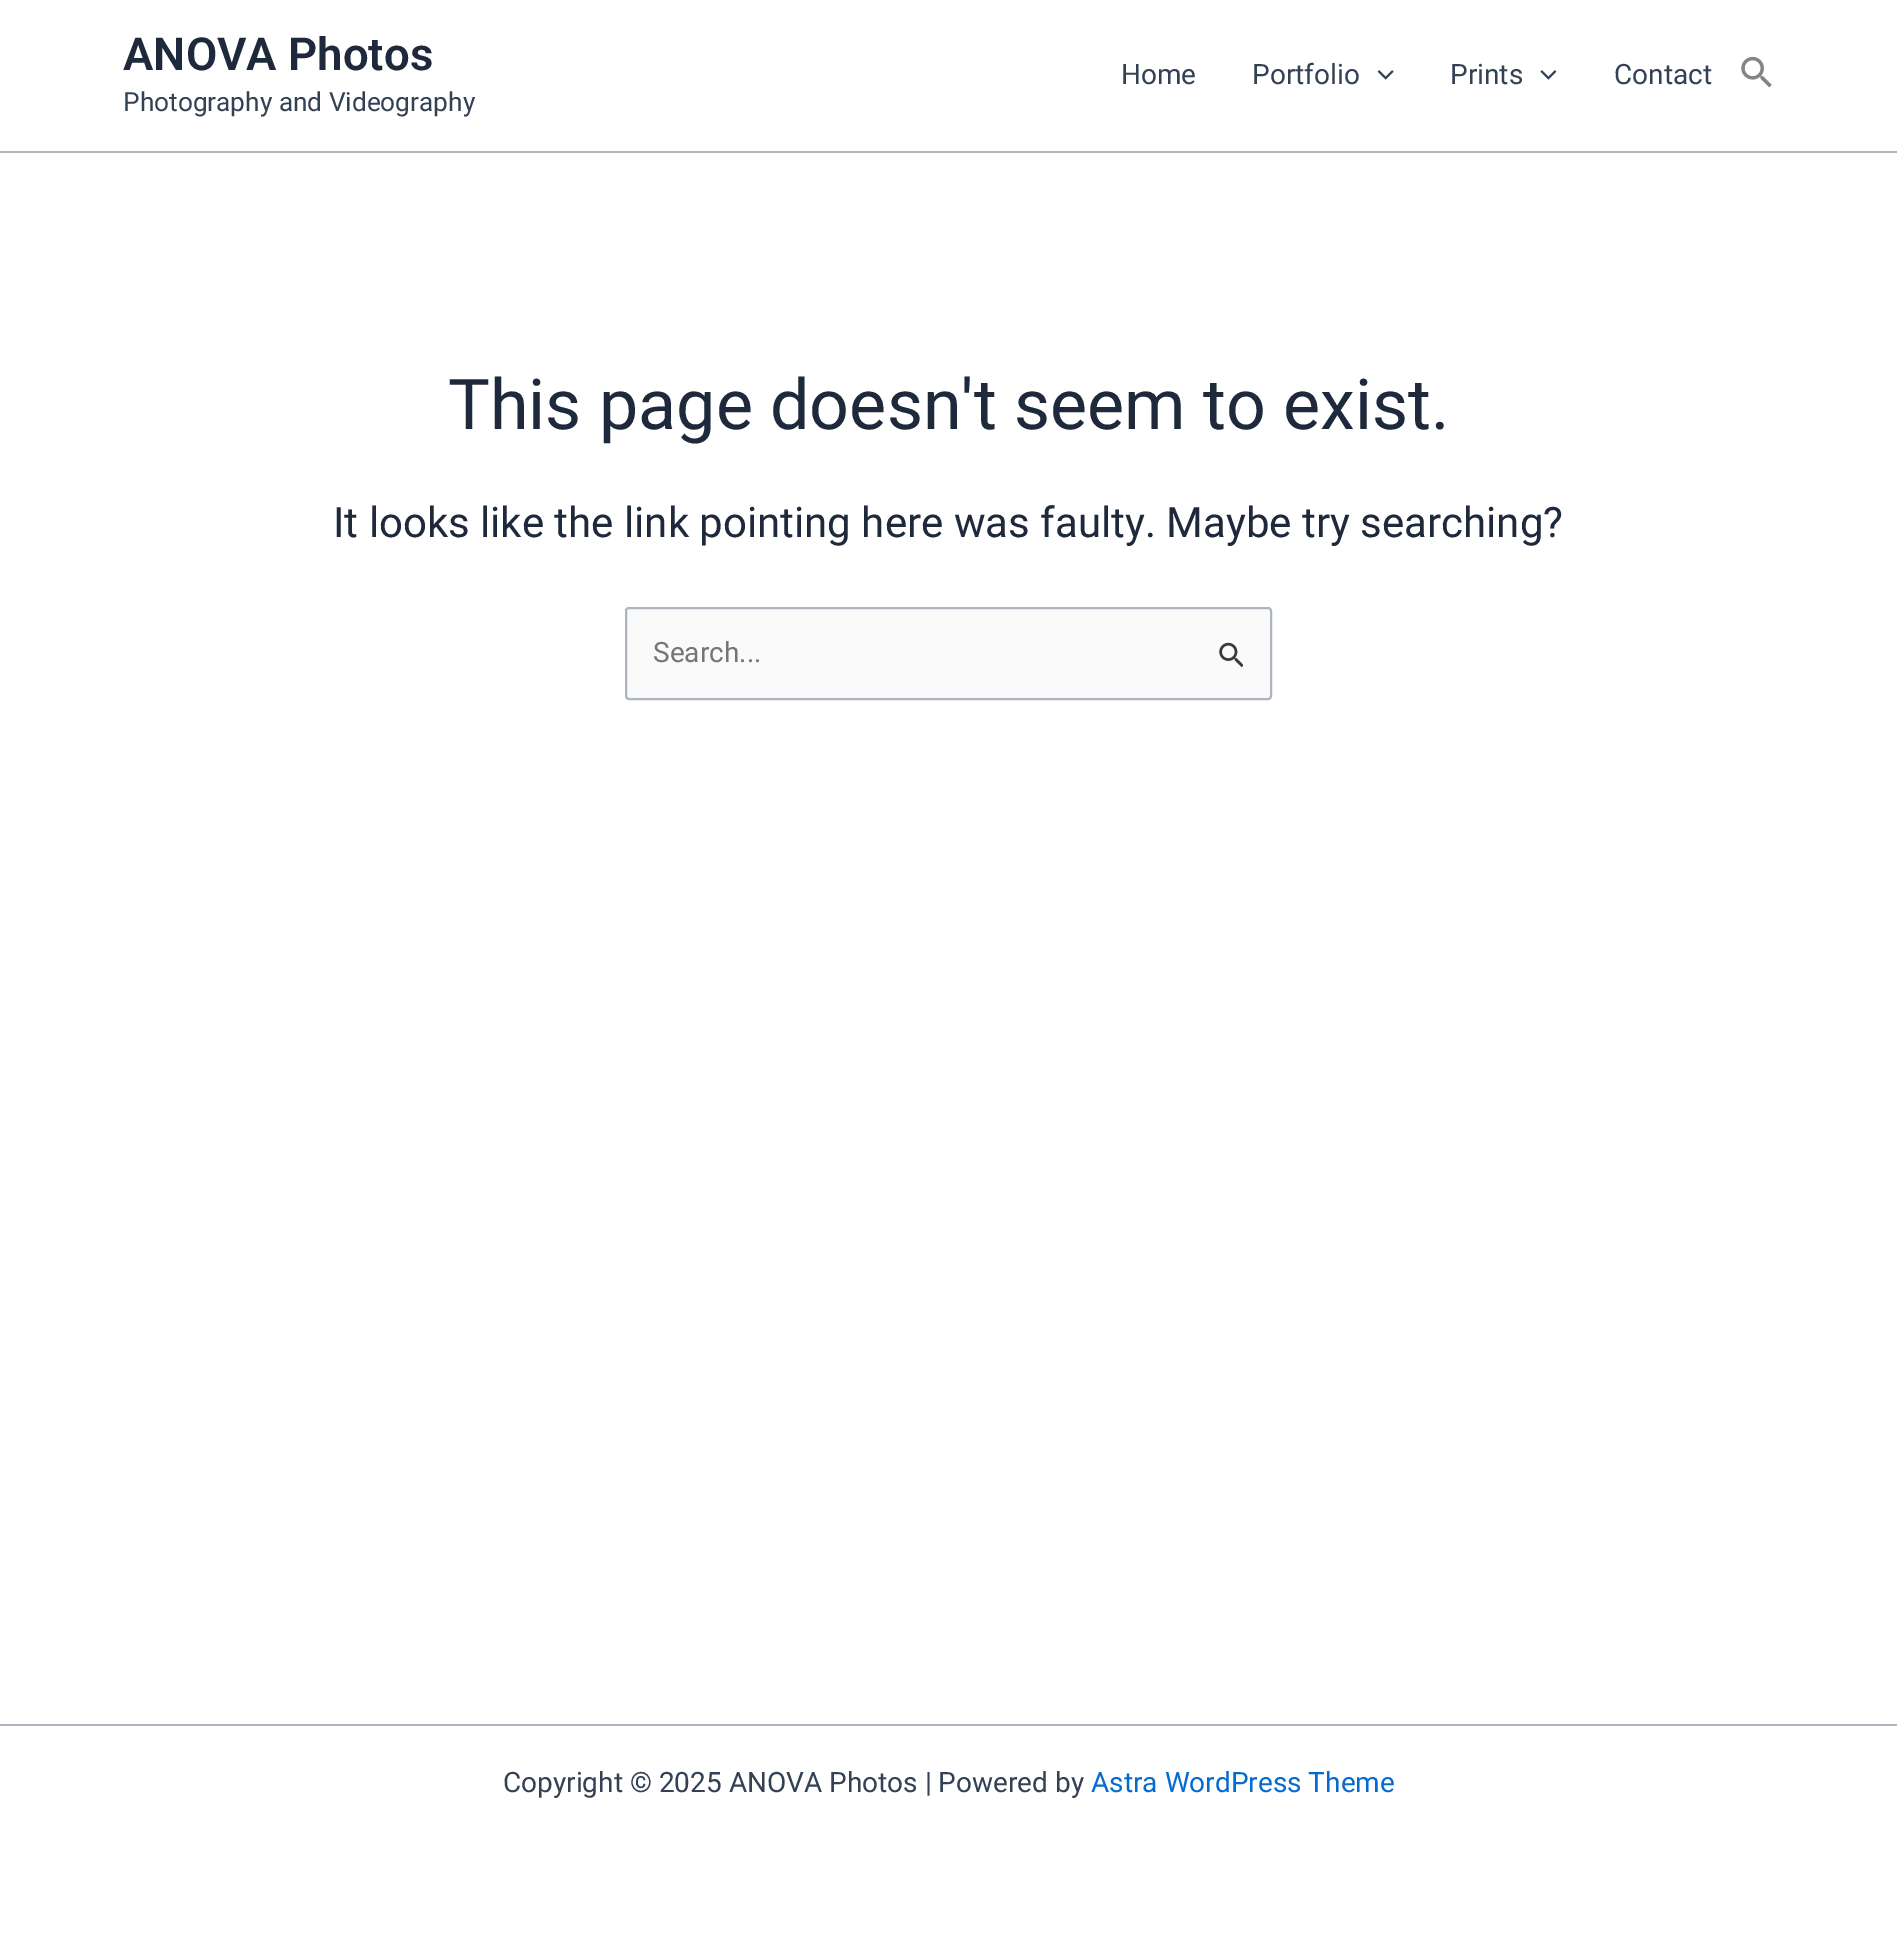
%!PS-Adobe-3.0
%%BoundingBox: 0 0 1897 1934
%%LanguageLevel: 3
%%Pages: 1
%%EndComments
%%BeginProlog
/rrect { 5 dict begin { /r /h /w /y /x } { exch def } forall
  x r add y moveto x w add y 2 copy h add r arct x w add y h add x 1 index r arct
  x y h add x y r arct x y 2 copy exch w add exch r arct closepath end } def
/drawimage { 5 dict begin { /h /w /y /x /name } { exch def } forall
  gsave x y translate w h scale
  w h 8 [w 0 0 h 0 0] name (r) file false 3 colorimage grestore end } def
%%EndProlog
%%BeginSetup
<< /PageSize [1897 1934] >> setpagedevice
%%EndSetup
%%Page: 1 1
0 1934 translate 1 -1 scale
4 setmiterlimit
1 setgray
0 0 1897 1934 rectfill
0.678 0.714 0.745 setrgbcolor
0 151 1897 2 rectfill
(images/1.raw) 1377 70 17 10 drawimage
(images/2.raw) 1540 70 17 10 drawimage
(images/3.raw) 1741 56 31 32 drawimage
0.98 setgray
626 608 645 91 3 rrect gsave fill grestore
0.678 0.714 0.745 setrgbcolor
2 setlinewidth
stroke
(images/4.raw) 1219 642 24 26 drawimage
0 1724 1897 2 rectfill
/Roboto-SemiBold [45.5 0 0 -45.5 0 0] selectfont
0.118 0.161 0.231 setrgbcolor
123 70 moveto (ANOVA Photos) show
/Roboto-Regular [26.25 0 0 -26.25 0 0] selectfont
0.2 0.255 0.333 setrgbcolor
123 111 moveto (Photography and Videography) show
/Roboto-Regular [28 0 0 -28 0 0] selectfont
1121 84 moveto (Home) show
1252 84 moveto (Portfolio) show
1450 84 moveto (Prints) show
1614 84 moveto (Contact) show
/Roboto-Regular [70 0 0 -70 0 0] selectfont
0.118 0.161 0.231 setrgbcolor
448 429 moveto (This page doesn't seem to exist.) show
/Roboto-Regular [42 0 0 -42 0 0] selectfont
333 537 moveto (It looks like the link pointing here was faulty. Maybe try searching?) show
/Roboto-Regular [28 0 0 -28 0 0] selectfont
0.459 setgray
653 662 moveto (Search...) show
0.2 0.255 0.333 setrgbcolor
503 1792 moveto (Copyright © 2025 ANOVA Photos | Powered by) show
0.016 0.42 0.824 setrgbcolor
1091 1792 moveto (Astra WordPress Theme) show
showpage
%%EOF
